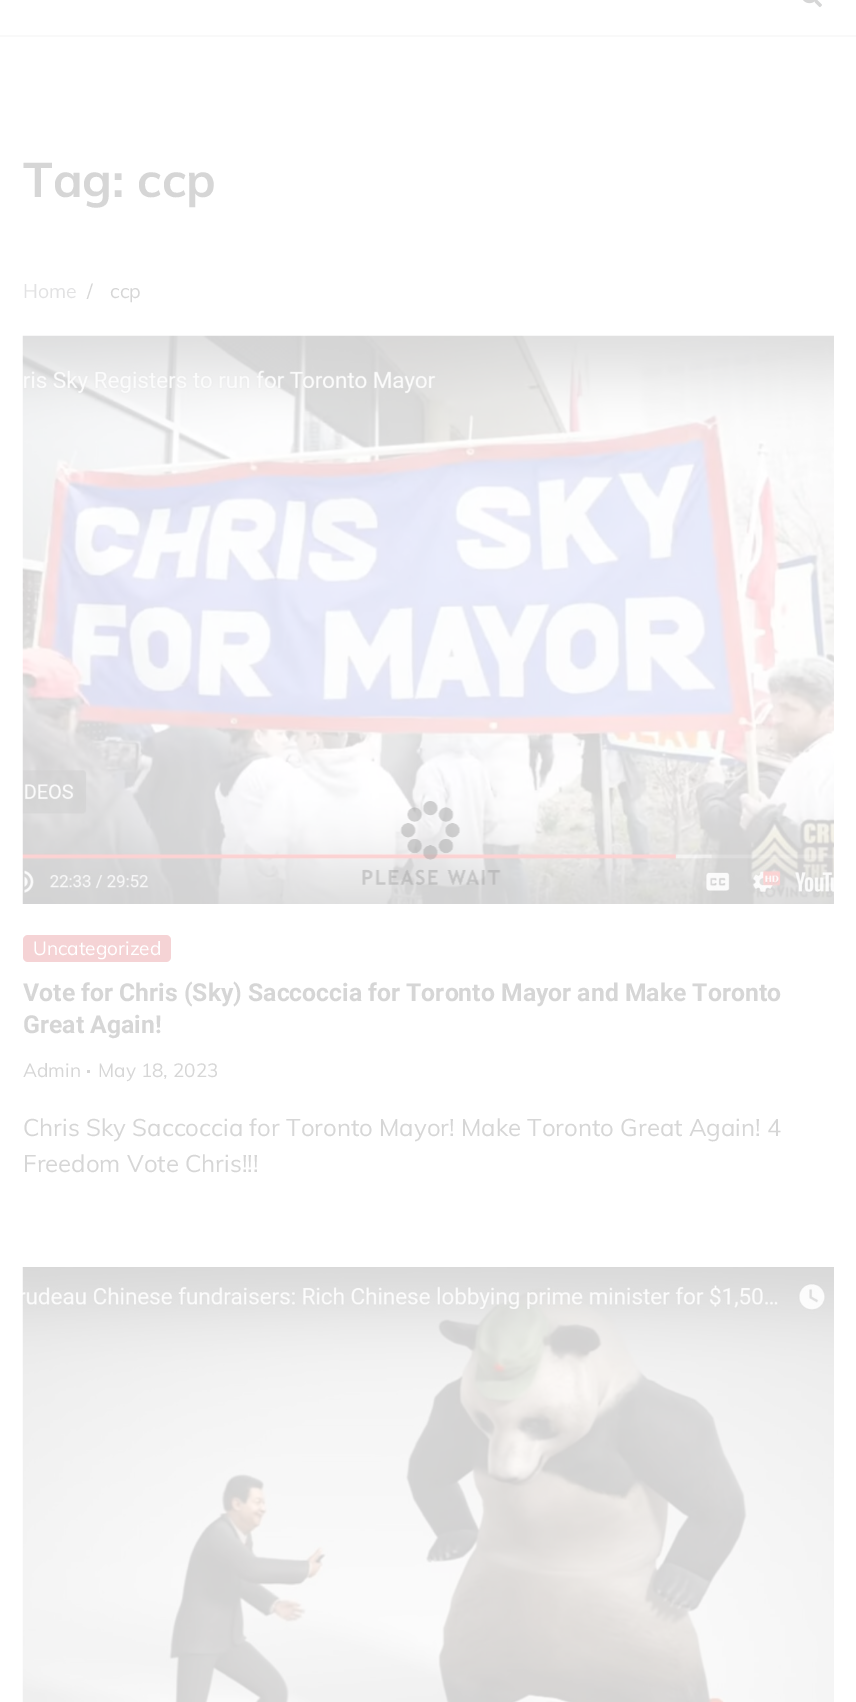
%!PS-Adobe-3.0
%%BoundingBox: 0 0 856 1702
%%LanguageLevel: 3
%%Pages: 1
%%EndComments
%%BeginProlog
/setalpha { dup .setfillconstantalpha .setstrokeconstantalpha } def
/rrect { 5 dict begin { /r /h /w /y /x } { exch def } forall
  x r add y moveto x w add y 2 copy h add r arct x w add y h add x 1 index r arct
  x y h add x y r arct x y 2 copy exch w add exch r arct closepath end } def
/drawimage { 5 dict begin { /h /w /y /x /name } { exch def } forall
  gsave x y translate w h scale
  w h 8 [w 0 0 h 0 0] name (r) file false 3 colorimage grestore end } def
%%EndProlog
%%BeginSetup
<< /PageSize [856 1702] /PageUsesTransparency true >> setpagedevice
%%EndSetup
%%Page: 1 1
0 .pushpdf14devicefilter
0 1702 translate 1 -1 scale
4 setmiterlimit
1 setgray
0 0 856 1702 rectfill
0.15 setalpha
0.843 0.843 0.847 setrgbcolor
0 35 856 2 rectfill
1 setalpha
(images/1.raw) 803 0 19 8 drawimage
(images/2.raw) 22 335 812 569 drawimage
0.961 0.827 0.835 setrgbcolor
23 935 148 27 5 rrect fill
0.839 setgray
87 1070 3 3 rectfill
(images/3.raw) 22 1267 812 435 drawimage
(images/4.raw) 362 801 139 84 drawimage
/Muli-Bold [48 0 0 -48 0 0] selectfont
23 197 moveto (Tag: ccp) show
/Muli-Regular [19.5 0 0 -19.5 0 0] selectfont
0.886 0.886 0.89 setrgbcolor
23 298 moveto (Home) show
0.839 setgray
87 298 moveto (/) show
110 298 moveto (ccp) show
/Muli-Regular [19 0 0 -19 0 0] selectfont
1 setgray
33 955 moveto (Uncategorized) show
/Roboto-Bold [24.75 0 0 -24.75 0 0] selectfont
0.839 setgray
23 1001 moveto (Vote for Chris \(Sky\) Saccoccia for Toronto Mayor and Make Toronto) show
23 1033 moveto (Great Again!) show
/Muli-Regular [19 0 0 -19 0 0] selectfont
23 1077 moveto (Admin) show
98 1077 moveto (May 18, 2023) show
/Muli-Regular [24 0 0 -24 0 0] selectfont
23 1136 moveto (Chris Sky Saccoccia for Toronto Mayor! Make Toronto Great Again! 4) show
23 1172 moveto (Freedom Vote Chris!!!) show
.poppdf14devicefilter showpage
%%EOF
